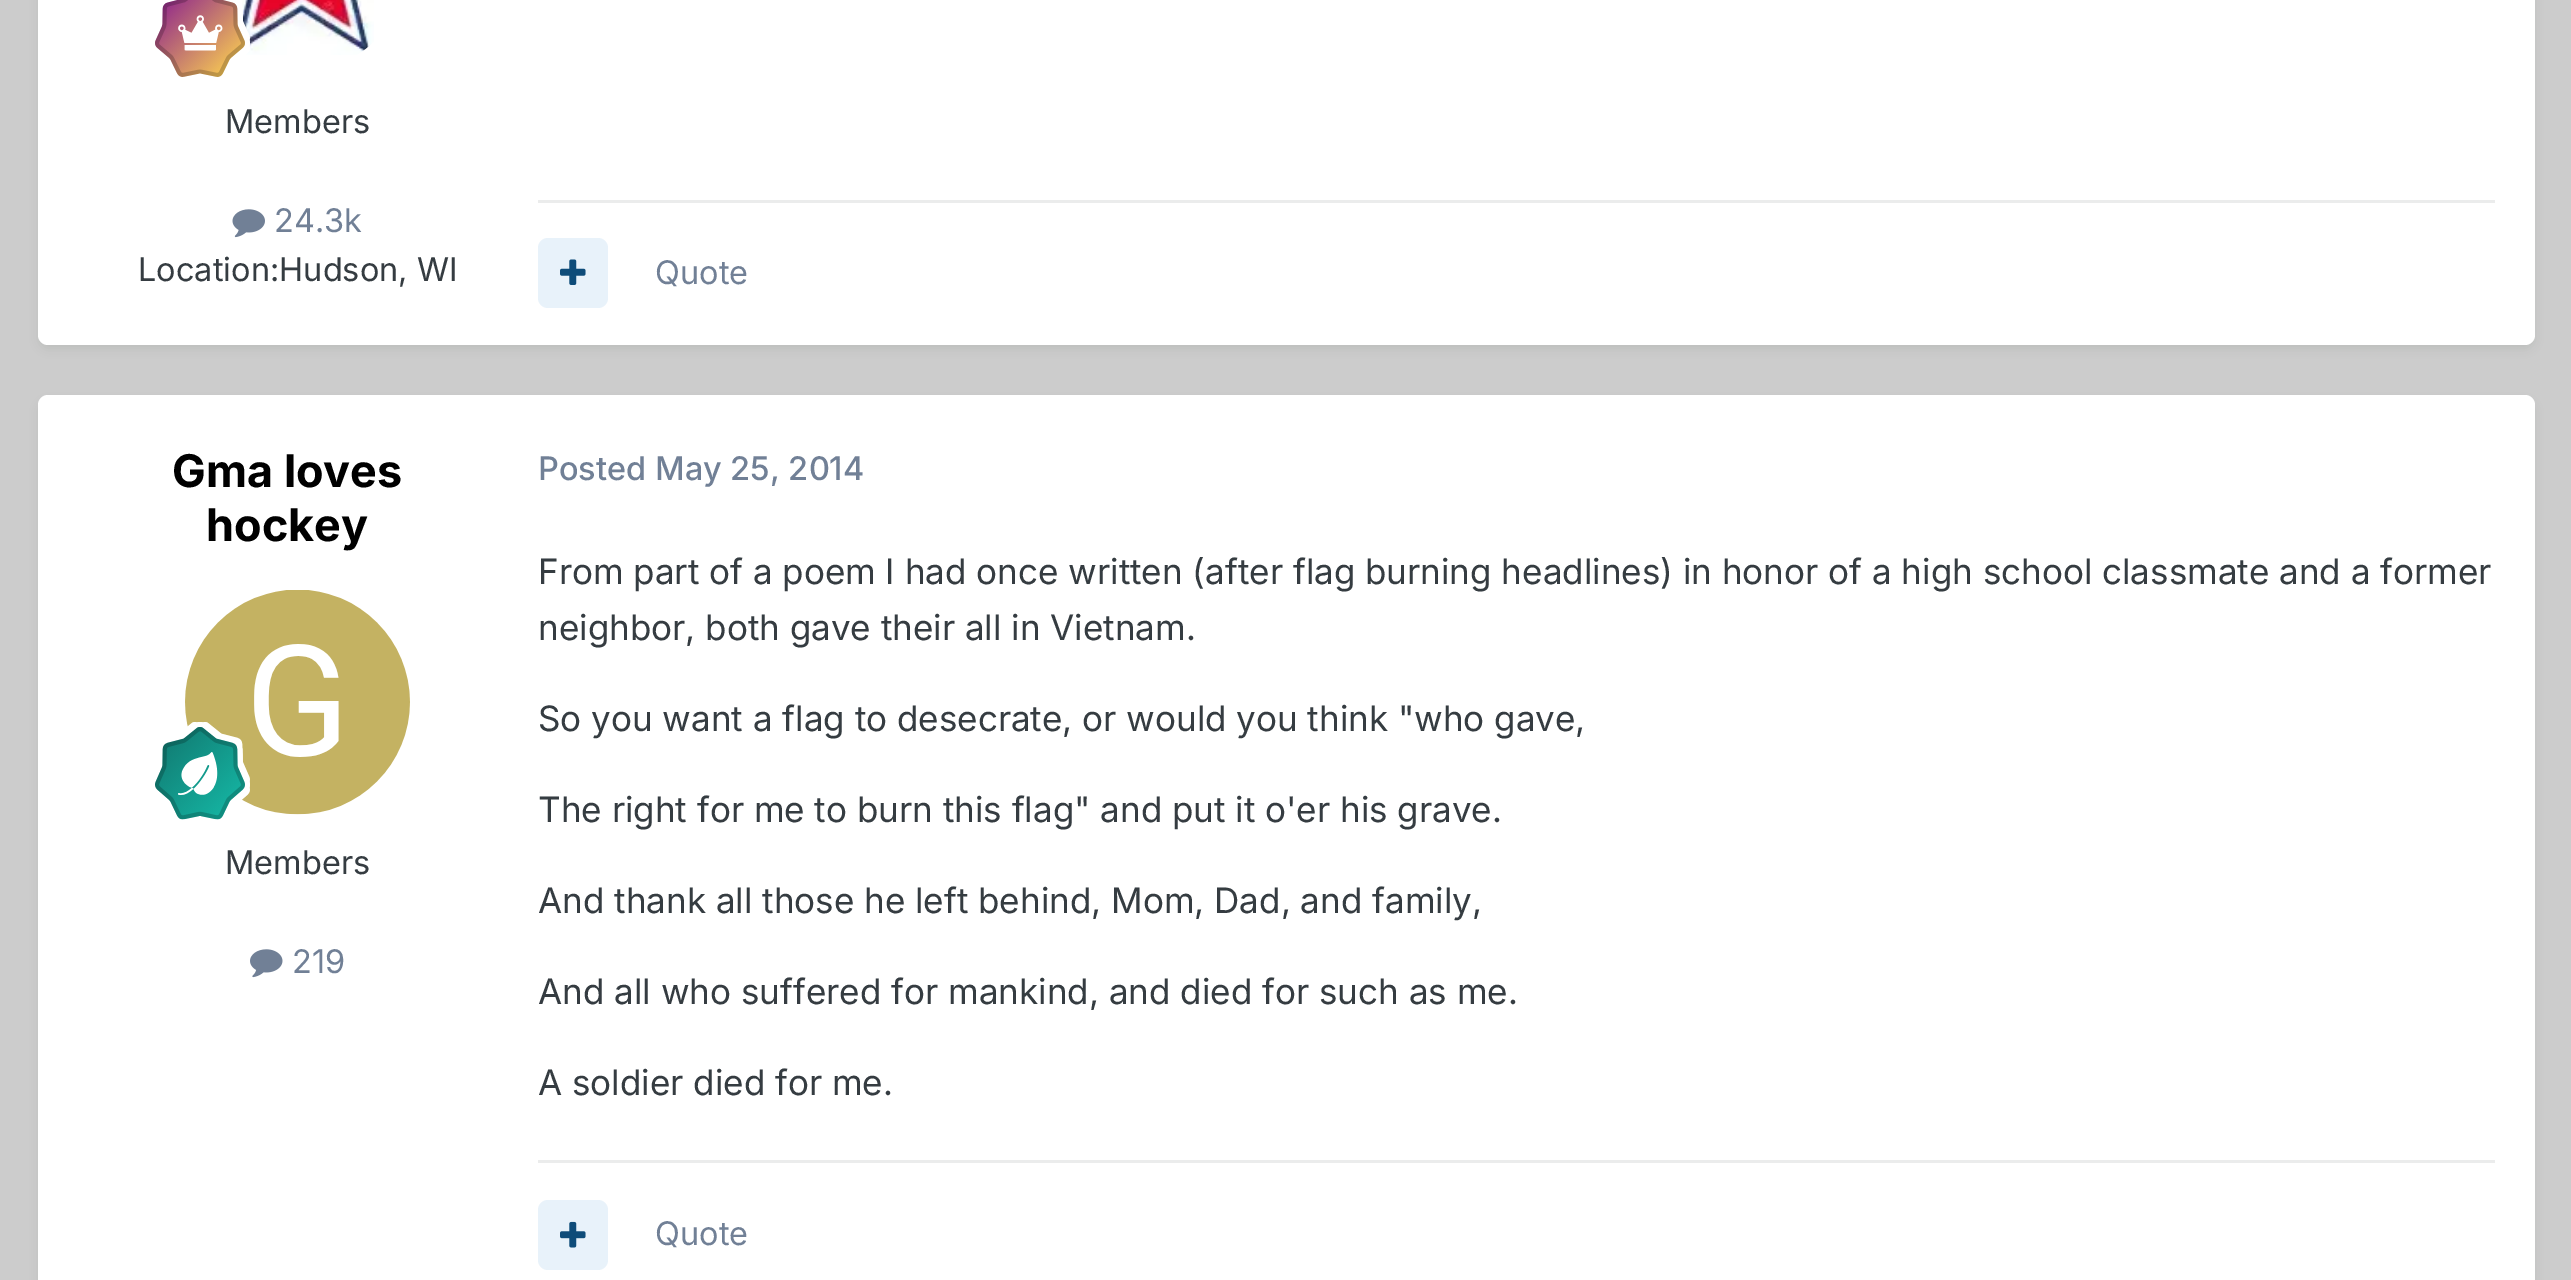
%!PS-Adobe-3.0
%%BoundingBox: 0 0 2571 1280
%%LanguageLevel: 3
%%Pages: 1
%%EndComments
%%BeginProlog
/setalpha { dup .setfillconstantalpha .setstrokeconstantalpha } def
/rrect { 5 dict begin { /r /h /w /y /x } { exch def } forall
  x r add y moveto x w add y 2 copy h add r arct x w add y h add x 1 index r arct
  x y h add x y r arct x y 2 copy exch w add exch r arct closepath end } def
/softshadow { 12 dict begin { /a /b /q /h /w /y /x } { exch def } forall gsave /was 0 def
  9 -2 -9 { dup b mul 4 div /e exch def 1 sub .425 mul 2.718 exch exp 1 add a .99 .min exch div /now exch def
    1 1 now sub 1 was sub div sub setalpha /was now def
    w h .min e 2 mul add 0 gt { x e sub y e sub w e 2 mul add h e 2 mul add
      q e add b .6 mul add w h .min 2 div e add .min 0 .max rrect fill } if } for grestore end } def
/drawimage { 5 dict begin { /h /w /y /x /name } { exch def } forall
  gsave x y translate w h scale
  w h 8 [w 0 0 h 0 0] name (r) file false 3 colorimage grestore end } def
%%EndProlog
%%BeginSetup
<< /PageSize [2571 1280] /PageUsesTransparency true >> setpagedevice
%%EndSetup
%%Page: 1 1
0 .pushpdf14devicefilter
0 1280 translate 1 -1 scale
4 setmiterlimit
0.8 setgray
0 0 2571 1280 rectfill
0.086 0.263 0.094 setrgbcolor
40 -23 2493 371 8 5 0.1 softshadow
1 setgray
38 -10 2497 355 10 rrect fill
(images/2.raw) 241 0 133 55 drawimage
(images/1.raw) 155 0 95 77 drawimage
(images/3.raw) 232 209 33 29 drawimage
0.922 0.925 0.925 setrgbcolor
538 200 1957 3 rectfill
0.91 0.949 0.98 setrgbcolor
538 238 70 70 10 rrect fill
(images/4.raw) 560 259 26 26 drawimage
0.086 0.263 0.094 setrgbcolor
40 403 2493 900 8 5 0.1 softshadow
1 setgray
38 395 2497 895 10 rrect fill
(images/5.raw) 185 590 225 225 drawimage
(images/6.raw) 155 722 95 98 drawimage
(images/7.raw) 250 949 33 29 drawimage
0.922 0.925 0.925 setrgbcolor
538 1160 1957 3 rectfill
0.91 0.949 0.98 setrgbcolor
538 1200 70 70 10 rrect fill
(images/8.raw) 560 1221 26 27 drawimage
/Inter-Regular [32.5 0 0 -32.5 0 0] selectfont
0.208 0.235 0.255 setrgbcolor
225 133 moveto (Members) show
0.443 0.502 0.588 setrgbcolor
274 232 moveto (24.3k) show
0.208 0.235 0.255 setrgbcolor
138 281 moveto (Location:Hudson, WI) show
0.443 0.502 0.588 setrgbcolor
655 284 moveto (Quote) show
/Inter-Bold [45 0 0 -45 0 0] selectfont
0 setgray
172 487 moveto (Gma loves) show
206 541 moveto (hockey) show
/Inter-Regular [32.5 0 0 -32.5 0 0] selectfont
0.208 0.235 0.255 setrgbcolor
225 874 moveto (Members) show
0.443 0.502 0.588 setrgbcolor
292 973 moveto (219) show
/Inter-Medium [32.5 0 0 -32.5 0 0] selectfont
538 480 moveto (Posted May 25, 2014) show
/Inter-Regular [35 0 0 -35 0 0] selectfont
0.208 0.235 0.255 setrgbcolor
538 584 moveto (From part of a poem I had once written \(after flag burning headlines\) in honor of a high school classmate and a former) show
538 640 moveto (neighbor, both gave their all in Vietnam.) show
538 731 moveto (So you want a flag to desecrate, or would you think "who gave,) show
538 822 moveto (The right for me to burn this flag" and put it o'er his grave.) show
538 913 moveto (And thank all those he left behind, Mom, Dad, and family,) show
538 1004 moveto (And all who suffered for mankind, and died for such as me.) show
538 1095 moveto (A soldier died for me.) show
/Inter-Regular [32.5 0 0 -32.5 0 0] selectfont
0.443 0.502 0.588 setrgbcolor
655 1245 moveto (Quote) show
.poppdf14devicefilter showpage
%%EOF
